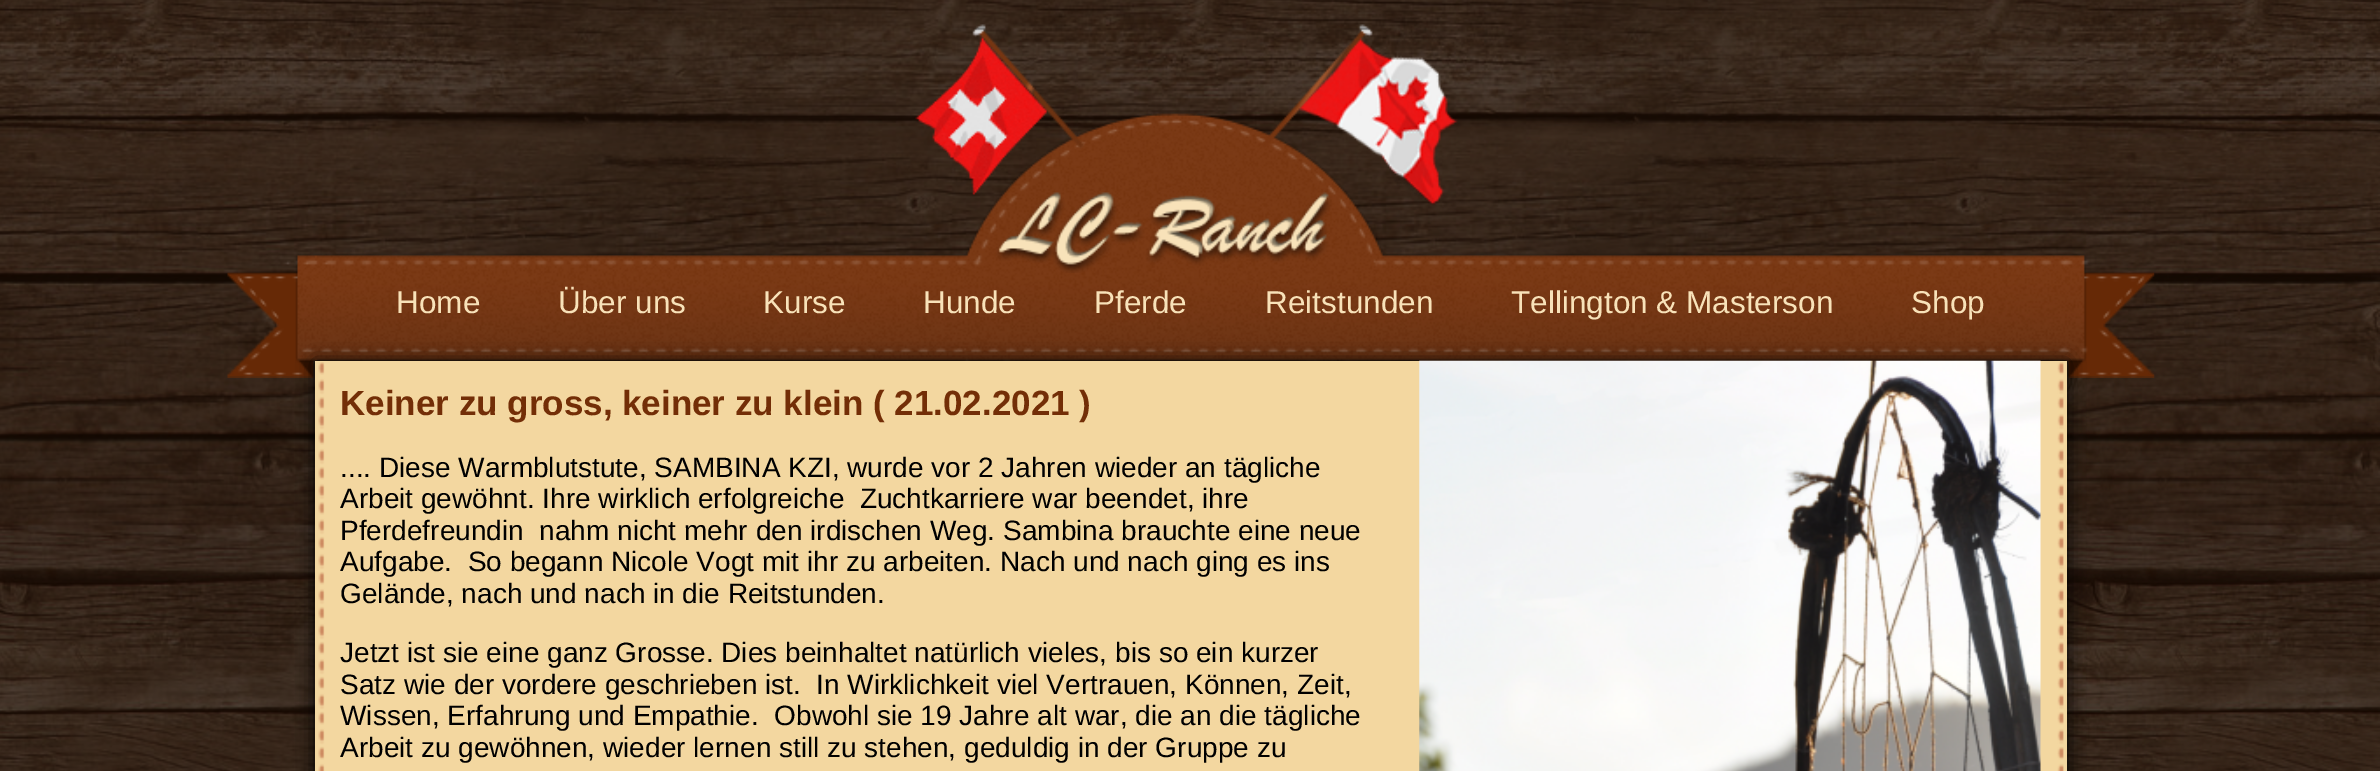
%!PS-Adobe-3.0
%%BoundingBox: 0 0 2380 771
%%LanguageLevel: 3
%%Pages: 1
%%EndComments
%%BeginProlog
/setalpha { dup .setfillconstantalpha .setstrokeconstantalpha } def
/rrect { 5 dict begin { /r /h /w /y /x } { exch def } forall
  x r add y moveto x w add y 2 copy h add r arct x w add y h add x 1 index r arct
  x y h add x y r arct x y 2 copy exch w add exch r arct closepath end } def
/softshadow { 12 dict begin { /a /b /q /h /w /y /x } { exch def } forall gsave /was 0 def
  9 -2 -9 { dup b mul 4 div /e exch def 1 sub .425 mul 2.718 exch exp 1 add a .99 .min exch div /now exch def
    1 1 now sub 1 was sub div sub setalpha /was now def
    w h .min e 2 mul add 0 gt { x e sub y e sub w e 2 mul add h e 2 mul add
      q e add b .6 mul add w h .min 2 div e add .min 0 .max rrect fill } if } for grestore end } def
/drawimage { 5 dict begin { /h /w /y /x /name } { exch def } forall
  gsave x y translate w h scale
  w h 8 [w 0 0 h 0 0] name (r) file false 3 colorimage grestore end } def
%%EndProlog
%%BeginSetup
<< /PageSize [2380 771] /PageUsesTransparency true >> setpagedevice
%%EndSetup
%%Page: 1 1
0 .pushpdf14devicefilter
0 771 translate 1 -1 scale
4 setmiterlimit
1 setgray
0 0 2380 771 rectfill
(images/1.raw) 0 0 2380 771 drawimage
(images/3.raw) 227 112 1928 266 drawimage
(images/2.raw) 915 24 543 249 drawimage
0 setgray
315 362 1752 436 0 9 1 softshadow
0.953 0.843 0.627 setrgbcolor
315 361 1752 410 rectfill
(images/4.raw) 318 362 1746 409 drawimage
(images/5.raw) 1419 360 622 411 drawimage
/LiberationSans-Regular [31.5 0 0 -31.5 0 0] selectfont
0.973 0.886 0.725 setrgbcolor
396 313 moveto (Home) show
558 313 moveto (Über uns) show
763 313 moveto (Kurse) show
923 313 moveto (Hunde) show
1094 313 moveto (Pferde) show
1265 313 moveto (Reitstunden) show
1511 313 moveto (Tellington & Masterson) show
1911 313 moveto (Shop) show
/LiberationSans-Bold [35 0 0 -35 0 0] selectfont
0.451 0.18 0.027 setrgbcolor
340 415 moveto (Keiner zu gross, keiner zu klein \( 21.02.2021 \)) show
/LiberationSans-Regular [28 0 0 -28 0 0] selectfont
0 setgray
340 477 moveto (.... Diese Warmblutstute, SAMBINA KZI, wurde vor 2 Jahren wieder an tägliche) show
340 508 moveto (Arbeit gewöhnt. Ihre wirklich erfolgreiche  Zuchtkarriere war beendet, ihre) show
340 540 moveto (Pferdefreundin  nahm nicht mehr den irdischen Weg. Sambina brauchte eine neue) show
340 571 moveto (Aufgabe.  So begann Nicole Vogt mit ihr zu arbeiten. Nach und nach ging es ins) show
340 603 moveto (Gelände, nach und nach in die Reitstunden.) show
340 662 moveto (Jetzt ist sie eine ganz Grosse. Dies beinhaltet natürlich vieles, bis so ein kurzer) show
340 694 moveto (Satz wie der vordere geschrieben ist.  In Wirklichkeit viel Vertrauen, Können, Zeit,) show
340 725 moveto (Wissen, Erfahrung und Empathie.  Obwohl sie 19 Jahre alt war, die an die tägliche) show
340 757 moveto (Arbeit zu gewöhnen, wieder lernen still zu stehen, geduldig in der Gruppe zu) show
.poppdf14devicefilter showpage
%%EOF
